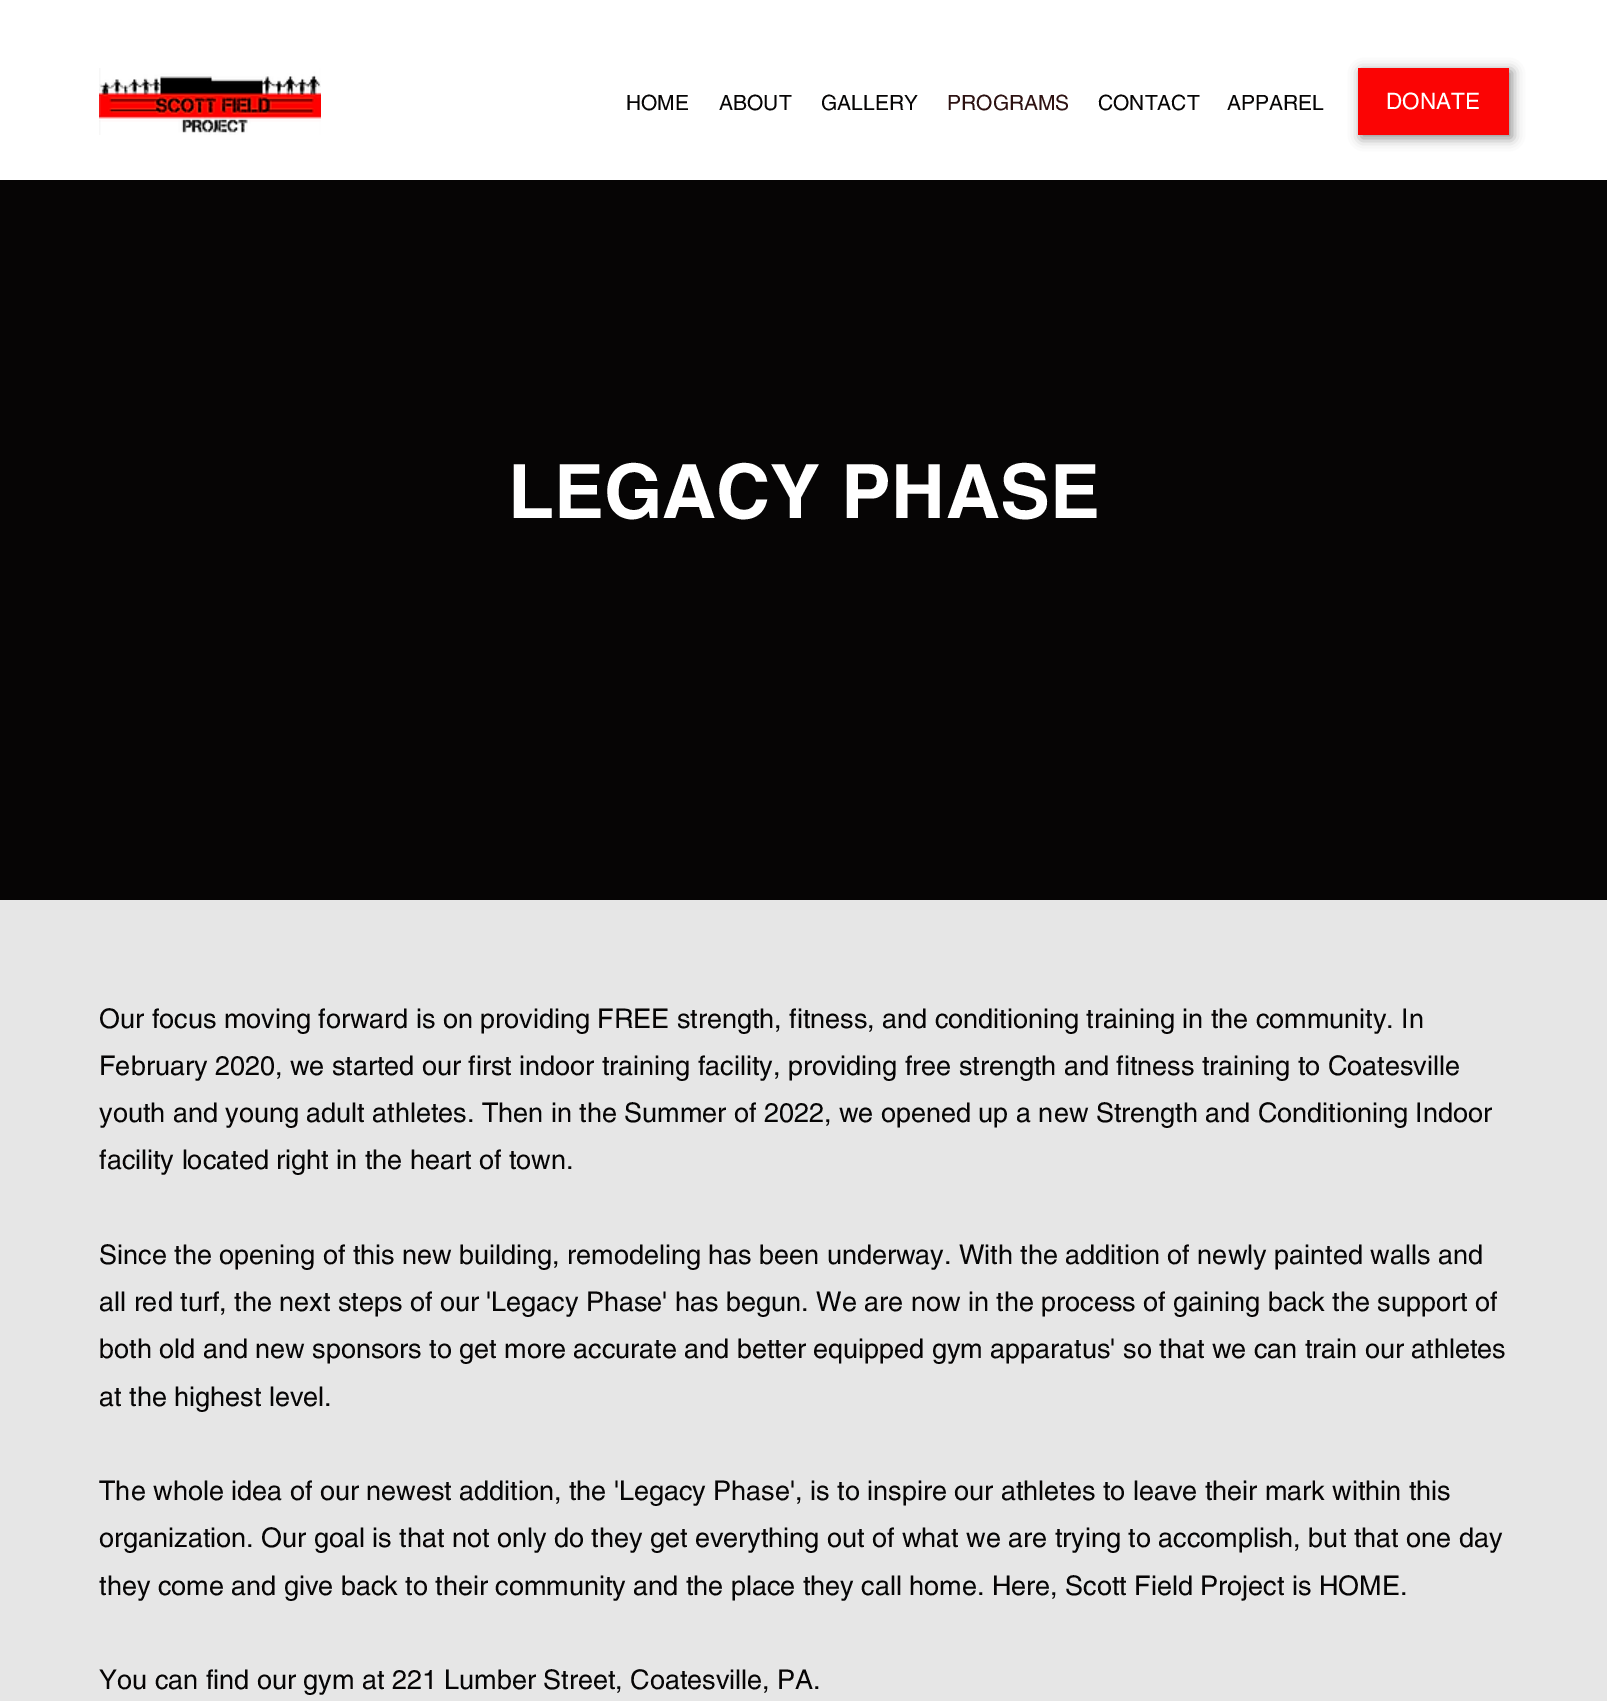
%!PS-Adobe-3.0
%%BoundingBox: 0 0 1607 1701
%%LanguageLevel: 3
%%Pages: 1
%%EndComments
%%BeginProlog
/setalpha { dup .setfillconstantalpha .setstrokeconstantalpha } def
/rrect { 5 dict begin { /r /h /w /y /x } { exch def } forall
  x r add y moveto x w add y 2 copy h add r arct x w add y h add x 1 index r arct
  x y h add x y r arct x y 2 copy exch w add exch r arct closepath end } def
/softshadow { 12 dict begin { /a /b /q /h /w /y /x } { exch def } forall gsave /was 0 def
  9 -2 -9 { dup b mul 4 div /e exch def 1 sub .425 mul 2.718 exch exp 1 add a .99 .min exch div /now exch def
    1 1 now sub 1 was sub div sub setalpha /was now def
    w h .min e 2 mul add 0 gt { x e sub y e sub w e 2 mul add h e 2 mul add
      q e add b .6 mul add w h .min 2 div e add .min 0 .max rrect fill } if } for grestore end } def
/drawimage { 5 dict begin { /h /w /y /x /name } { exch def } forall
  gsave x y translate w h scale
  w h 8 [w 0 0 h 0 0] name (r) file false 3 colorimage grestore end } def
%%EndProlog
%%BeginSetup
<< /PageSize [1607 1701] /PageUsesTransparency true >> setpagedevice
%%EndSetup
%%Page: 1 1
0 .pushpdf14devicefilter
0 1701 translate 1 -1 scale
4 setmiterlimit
1 setgray
0 0 1607 1701 rectfill
(images/1.raw) 99 68 222 67 drawimage
0 setgray
1361 71 151 67 0 6 0.45 softshadow
0.984 0.016 0.016 setrgbcolor
1358 68 151 67 rectfill
0.024 0.02 0.02 setrgbcolor
0 180 1607 720 rectfill
0.902 setgray
0 900 1607 801 rectfill
/helvetica-Regular [21 0 0 -21 0 0] selectfont
0.024 0.02 0.02 setrgbcolor
626 110 moveto (HOME) show
719 110 moveto (ABOUT) show
821 110 moveto (GALLERY) show
0.176 0.071 0.071 setrgbcolor
947 110 moveto (PROGRAMS) show
0.024 0.02 0.02 setrgbcolor
1098 110 moveto (CONTACT) show
1227 110 moveto (APPAREL) show
/helvetica-Regular [22.5 0 0 -22.5 0 0] selectfont
1 setgray
1386 109 moveto (DONATE) show
/helvetica-Bold [75 0 0 -75 0 0] selectfont
508 518 moveto (LEGACY PHASE) show
/helvetica-Regular [27 0 0 -27 0 0] selectfont
0.024 0.02 0.02 setrgbcolor
99 1028 moveto (Our focus moving forward is on providing FREE strength, fitness, and conditioning training in the community. In) show
99 1075 moveto (February 2020, we started our first indoor training facility, providing free strength and fitness training to Coatesville) show
99 1122 moveto (youth and young adult athletes. Then in the Summer of 2022, we opened up a new Strength and Conditioning Indoor) show
99 1169 moveto (facility located right in the heart of town.) show
99 1264 moveto (Since the opening of this new building, remodeling has been underway. With the addition of newly painted walls and) show
99 1311 moveto (all red turf, the next steps of our 'Legacy Phase' has begun. We are now in the process of gaining back the support of) show
99 1358 moveto (both old and new sponsors to get more accurate and better equipped gym apparatus' so that we can train our athletes) show
99 1406 moveto (at the highest level.) show
99 1500 moveto (The whole idea of our newest addition, the 'Legacy Phase', is to inspire our athletes to leave their mark within this) show
99 1547 moveto (organization. Our goal is that not only do they get everything out of what we are trying to accomplish, but that one day) show
99 1595 moveto (they come and give back to their community and the place they call home. Here, Scott Field Project is HOME.) show
99 1689 moveto (You can find our gym at 221 Lumber Street, Coatesville, PA.) show
.poppdf14devicefilter showpage
%%EOF
